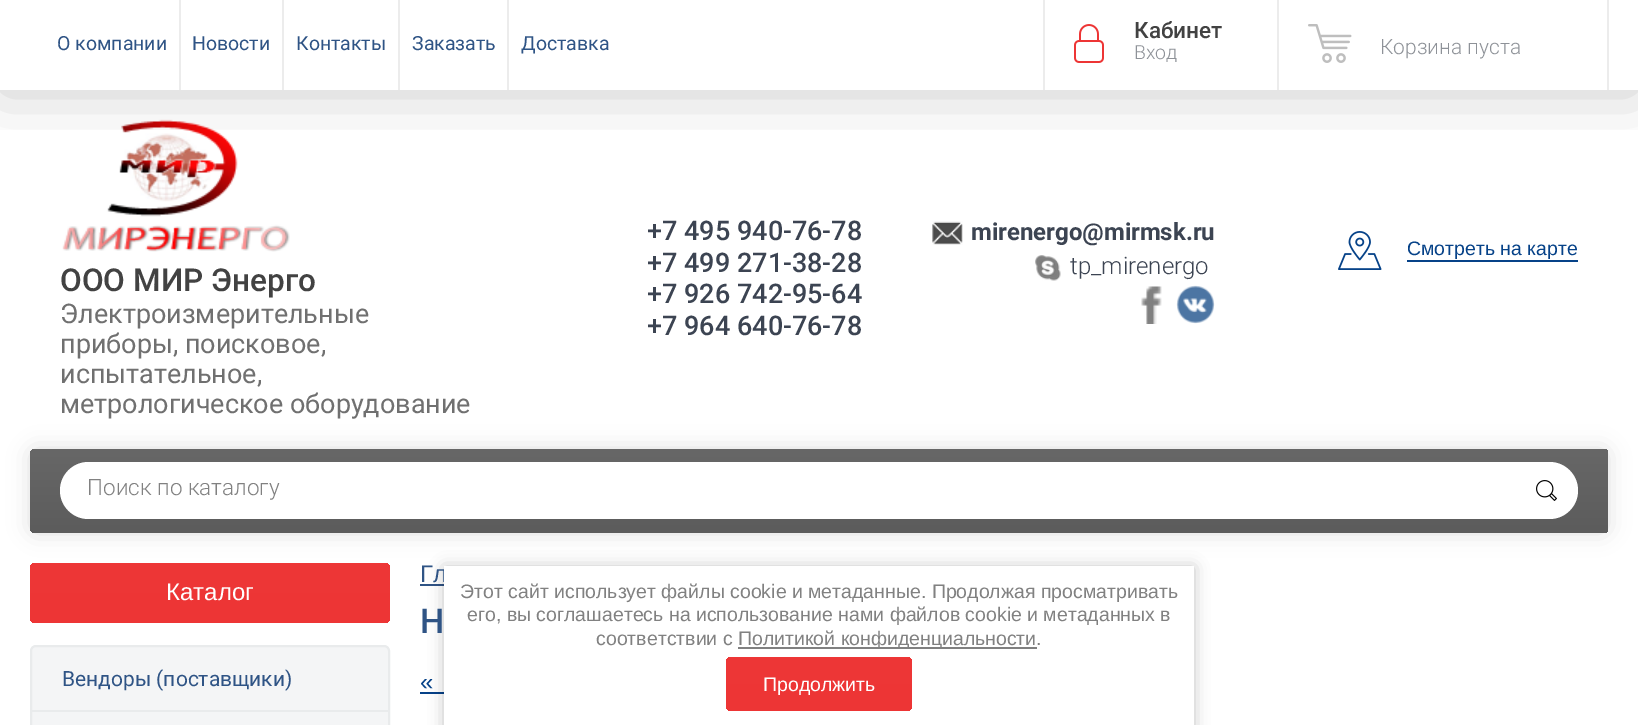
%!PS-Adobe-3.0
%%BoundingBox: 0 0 1638 725
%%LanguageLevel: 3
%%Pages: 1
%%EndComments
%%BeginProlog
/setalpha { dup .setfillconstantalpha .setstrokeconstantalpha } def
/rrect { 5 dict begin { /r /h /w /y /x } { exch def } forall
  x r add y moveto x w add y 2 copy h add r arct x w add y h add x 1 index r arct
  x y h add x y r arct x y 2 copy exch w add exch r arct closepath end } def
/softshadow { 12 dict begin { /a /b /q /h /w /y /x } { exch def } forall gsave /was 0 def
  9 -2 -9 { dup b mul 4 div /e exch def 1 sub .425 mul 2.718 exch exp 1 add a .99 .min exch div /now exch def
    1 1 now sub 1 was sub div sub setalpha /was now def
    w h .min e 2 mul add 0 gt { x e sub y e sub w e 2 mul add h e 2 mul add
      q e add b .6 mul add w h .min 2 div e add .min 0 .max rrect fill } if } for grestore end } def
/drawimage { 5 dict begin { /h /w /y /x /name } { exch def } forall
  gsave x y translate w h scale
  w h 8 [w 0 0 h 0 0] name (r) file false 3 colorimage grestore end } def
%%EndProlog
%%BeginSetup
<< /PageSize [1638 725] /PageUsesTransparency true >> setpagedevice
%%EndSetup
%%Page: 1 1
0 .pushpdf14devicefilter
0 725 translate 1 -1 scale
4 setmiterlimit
1 setgray
0 0 1638 725 rectfill
(images/3.raw) 62 119 228 133 drawimage
gsave
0 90 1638 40 rectclip
0 setgray
0 2 1638 90 0 30 0.2 softshadow
grestore
0.925 setgray
179 0 2 90 rectfill
282 0 2 90 rectfill
398 0 2 90 rectfill
507 0 2 90 rectfill
1043 0 2 90 rectfill
1277 0 2 90 rectfill
(images/1.raw) 1074 24 30 39 drawimage
1607 0 2 90 rectfill
(images/2.raw) 1308 24 44 39 drawimage
(images/4.raw) 932 221 31 24 drawimage
(images/5.raw) 1035 255 26 26 drawimage
(images/6.raw) 1141 286 21 38 drawimage
(images/7.raw) 1176 285 39 39 drawimage
(images/8.raw) 1338 231 44 39 drawimage
0.024 0.259 0.533 setrgbcolor
1407 260 171 2 rectfill
0 setgray
30 449 1578 84 6 11 0.13 softshadow
gsave newpath 36 449 moveto 1603 449 lineto 1606 449 1608 451 1608 454 curveto 1608 528 lineto 1608 531 1606 533 1603 533 curveto 36 533 lineto 32.5 533 30 530.5 30 527 curveto 30 455 lineto 30 451.5 32.5 449 36 449 curveto closepath clip newpath
<< /ShadingType 2 /ColorSpace /DeviceRGB /Coords [819 533 819 449] /Extend [true true] /Function << /FunctionType 2 /Domain [0 1] /C0 [0.361 0.361 0.361] /C1 [0.404 0.404 0.404] /N 1 >> >> shfill grestore
1 setgray
60 462 1518 57 28.5 rrect fill
(images/9.raw) 1536 480 21 21 drawimage
gsave 30 563 360 60 5 rrect clip newpath
<< /ShadingType 2 /ColorSpace /DeviceRGB /Coords [210 623 210 563] /Extend [true true] /Function << /FunctionType 2 /Domain [0 1] /C0 [0.929 0.208 0.208] /C1 [0.933 0.216 0.216] /N 1 >> >> shfill grestore
0.957 0.961 0.965 setrgbcolor
31 646 358 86 5 rrect gsave fill grestore
0.914 0.922 0.925 setrgbcolor
2 setlinewidth
stroke
32 710 357 2 rectfill
0.184 0.329 0.522 setrgbcolor
420 584 24 2 rectfill
0.024 0.259 0.533 setrgbcolor
420 692 24 2 rectfill
0 setgray
444 567 750 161 0 7.5 0.23 softshadow
/Roboto-Regular [19.5 0 0 -19.5 0 0] selectfont
0.184 0.329 0.522 setrgbcolor
57 50 moveto (О компании) show
192 50 moveto (Новости) show
296 50 moveto (Контакты) show
412 50 moveto (Заказать) show
521 50 moveto (Доставка) show
/Roboto-Medium [22.5 0 0 -22.5 0 0] selectfont
0.259 setgray
1134 38 moveto (Кабинет) show
/Roboto-Light [19.5 0 0 -19.5 0 0] selectfont
0.557 0.573 0.596 setrgbcolor
1134 59 moveto (Вход) show
/Roboto-Light [21 0 0 -21 0 0] selectfont
1380 54 moveto (Корзина пуста) show
/Roboto-Medium [31.5 0 0 -31.5 0 0] selectfont
0.259 setgray
60 291 moveto (ООО МИР Энерго) show
/Roboto-Regular [27 0 0 -27 0 0] selectfont
0.439 setgray
60 323 moveto (Электроизмерительные) show
60 353 moveto (приборы, поисковое,) show
60 383 moveto (испытательное,) show
60 413 moveto (метрологическое оборудование) show
/Roboto-Medium [27 0 0 -27 0 0] selectfont
0.235 0.267 0.322 setrgbcolor
647 240 moveto (+7 495 940-76-78) show
647 272 moveto (+7 499 271-38-28) show
647 303 moveto (+7 926 742-95-64) show
647 335 moveto (+7 964 640-76-78) show
/Roboto-Bold [24 0 0 -24 0 0] selectfont
971 240 moveto (mirenergo@mirmsk.ru) show
/Roboto-Light [24 0 0 -24 0 0] selectfont
1070 274 moveto (tp_mirenergo) show
/LiberationSans-Regular [19.5 0 0 -19.5 0 0] selectfont
0.024 0.259 0.533 setrgbcolor
1407 255 moveto (Смотреть на карте) show
/Roboto-Light [22.5 0 0 -22.5 0 0] selectfont
0.506 setgray
87 495 moveto (Поиск по каталогу) show
/LiberationSans-Regular [24 0 0 -24 0 0] selectfont
1 setgray
166 600 moveto (Каталог) show
/Roboto-Regular [21 0 0 -21 0 0] selectfont
0.184 0.329 0.522 setrgbcolor
62 686 moveto (Вендоры \(поставщики\)) show
/LiberationSans-Regular [24 0 0 -24 0 0] selectfont
420 582 moveto (Гл) show
/Roboto-Medium [34 0 0 -34 0 0] selectfont
420 633 moveto (Н) show
/LiberationSans-Regular [24 0 0 -24 0 0] selectfont
0.024 0.259 0.533 setrgbcolor
420 690 moveto («) show
1 setgray
444 566 750 159 rectfill
/LiberationSans-Regular [19.5 0 0 -19.5 0 0] selectfont
0.506 setgray
460 598 moveto (Этот сайт использует файлы cookie и метаданные. Продолжая просматривать) show
467 621 moveto (его, вы соглашаетесь на использование нами файлов cookie и метаданных в) show
596 645 moveto (соответствии с) show
0.502 setgray
738 647 299 2 rectfill
0.506 setgray
738 645 moveto (Политикой конфиденциальности.) show
gsave 726 657 186 54 5 rrect clip newpath
<< /ShadingType 2 /ColorSpace /DeviceRGB /Coords [819 711 819 657] /Extend [true true] /Function << /FunctionType 2 /Domain [0 1] /C0 [0.929 0.208 0.208] /C1 [0.933 0.216 0.216] /N 1 >> >> shfill grestore
1 setgray
763 691 moveto (Продолжить) show
.poppdf14devicefilter showpage
%%EOF
